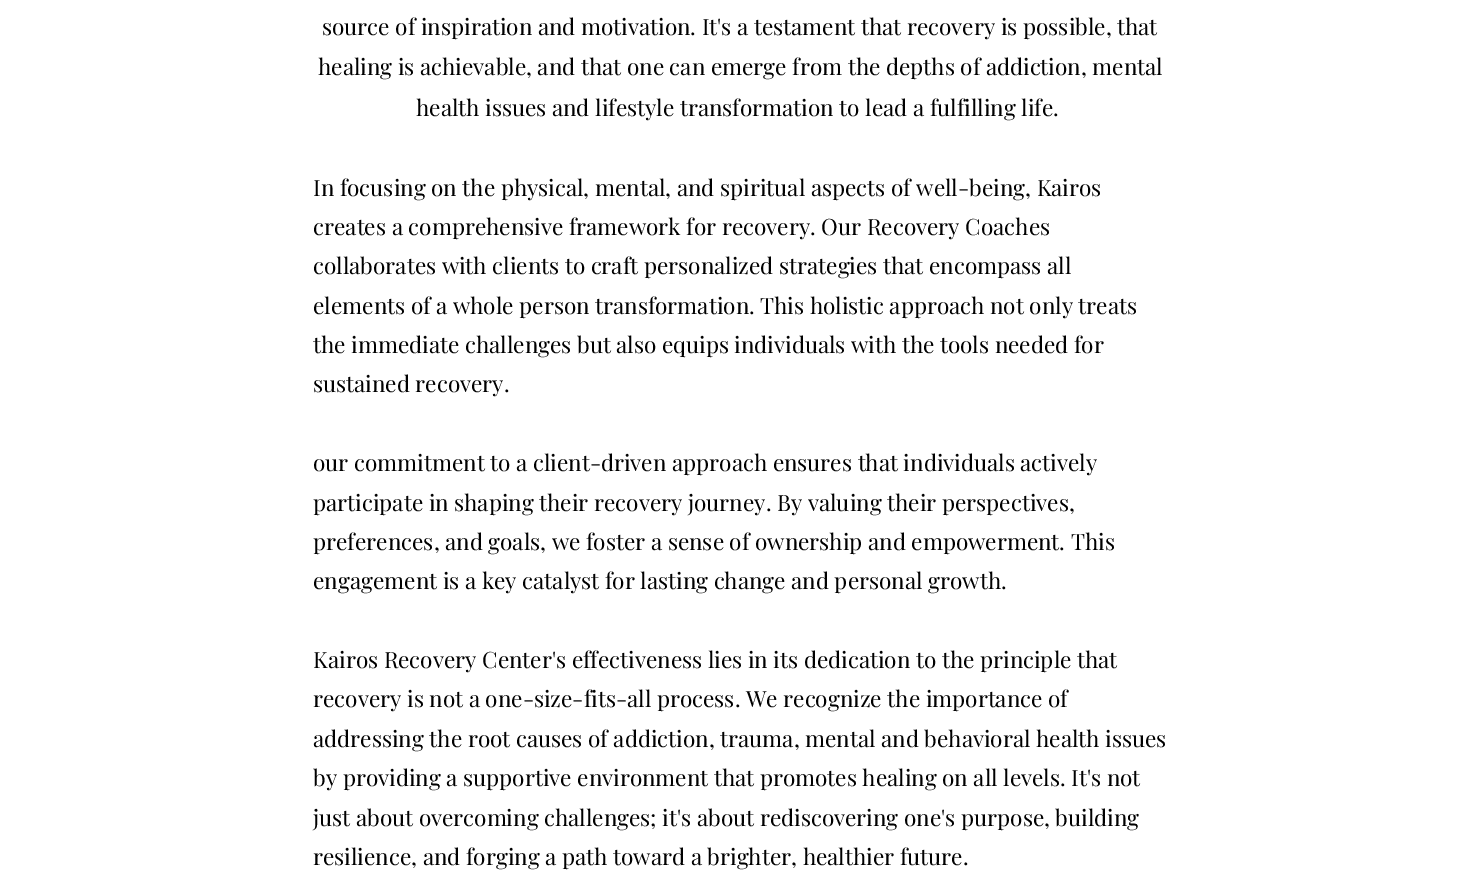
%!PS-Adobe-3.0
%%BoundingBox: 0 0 1479 896
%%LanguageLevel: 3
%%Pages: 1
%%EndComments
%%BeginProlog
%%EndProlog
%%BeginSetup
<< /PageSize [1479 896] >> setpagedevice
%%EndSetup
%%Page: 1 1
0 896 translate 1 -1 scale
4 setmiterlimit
1 setgray
0 0 1479 896 rectfill
/PlayfairDisplay-Regular [22.5 0 0 -22.5 0 0] selectfont
0 setgray
322 35 moveto (source of inspiration and motivation. It's a testament that recovery is possible, that) show
318 75 moveto (healing is achievable, and that one can emerge from the depths of addiction, mental) show
416 116 moveto (health issues and lifestyle transformation to lead a fulfilling life.) show
313 196 moveto (In focusing on the physical, mental, and spiritual aspects of well-being, Kairos) show
313 235 moveto (creates a comprehensive framework for recovery. Our Recovery Coaches) show
313 274 moveto (collaborates with clients to craft personalized strategies that encompass all) show
313 314 moveto (elements of a whole person transformation. This holistic approach not only treats) show
313 353 moveto (the immediate challenges but also equips individuals with the tools needed for) show
313 392 moveto (sustained recovery.) show
313 471 moveto (our commitment to a client-driven approach ensures that individuals actively) show
313 511 moveto (participate in shaping their recovery journey. By valuing their perspectives,) show
313 550 moveto (preferences, and goals, we foster a sense of ownership and empowerment. This) show
313 589 moveto (engagement is a key catalyst for lasting change and personal growth.) show
313 668 moveto (Kairos Recovery Center's effectiveness lies in its dedication to the principle that) show
313 707 moveto (recovery is not a one-size-fits-all process. We recognize the importance of) show
313 747 moveto (addressing the root causes of addiction, trauma, mental and behavioral health issues) show
313 786 moveto (by providing a supportive environment that promotes healing on all levels. It's not) show
313 826 moveto (just about overcoming challenges; it's about rediscovering one's purpose, building) show
313 865 moveto (resilience, and forging a path toward a brighter, healthier future.) show
showpage
%%EOF
